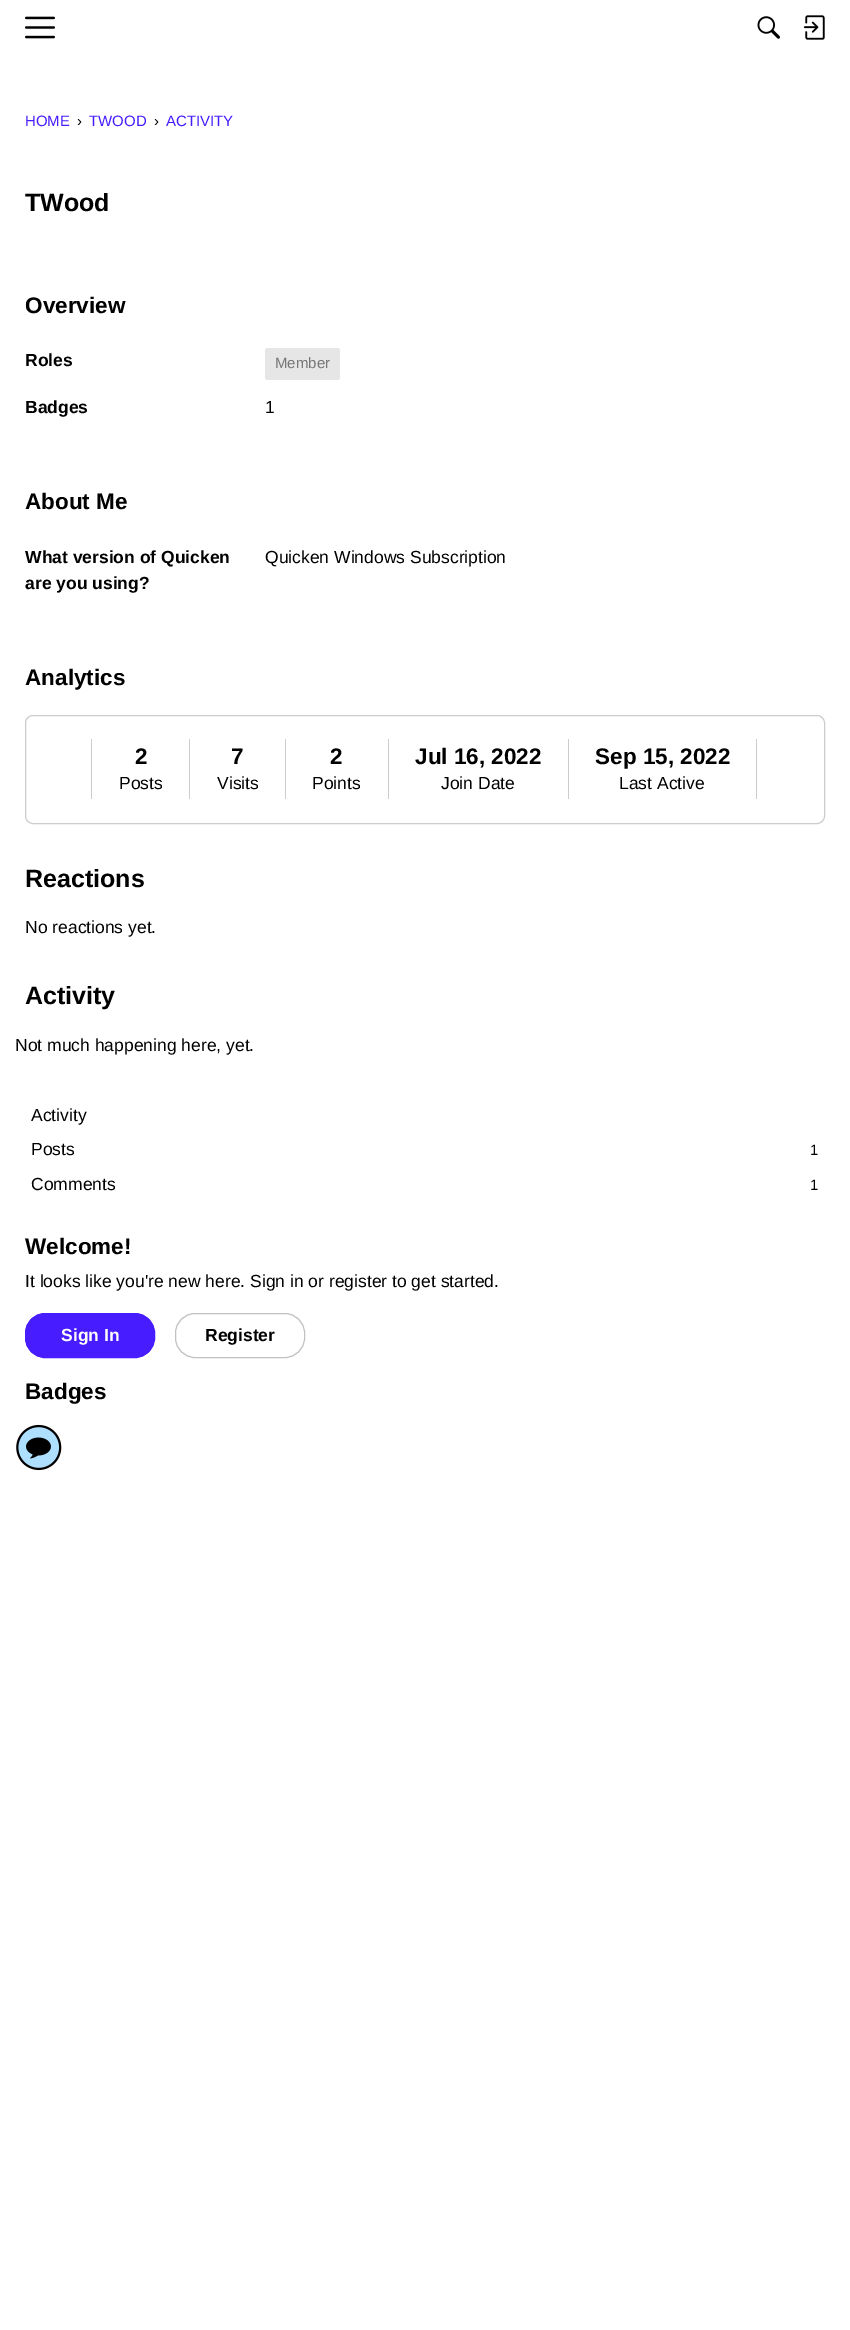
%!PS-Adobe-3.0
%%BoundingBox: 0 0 850 2330
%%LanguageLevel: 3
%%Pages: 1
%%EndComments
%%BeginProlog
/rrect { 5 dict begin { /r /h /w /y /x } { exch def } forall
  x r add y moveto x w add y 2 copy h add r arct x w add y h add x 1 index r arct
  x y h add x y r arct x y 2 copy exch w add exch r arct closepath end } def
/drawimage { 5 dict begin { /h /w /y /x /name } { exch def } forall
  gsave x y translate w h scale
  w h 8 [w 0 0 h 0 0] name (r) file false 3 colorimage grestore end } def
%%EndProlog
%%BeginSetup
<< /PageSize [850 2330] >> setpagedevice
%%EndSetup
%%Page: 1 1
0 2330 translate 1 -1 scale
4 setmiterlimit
1 setgray
0 0 850 2330 rectfill
(images/1.raw) 25 16 30 23 drawimage
(images/2.raw) 757 16 23 23 drawimage
(images/3.raw) 803 15 22 25 drawimage
0.902 setgray
265 348 75 32 2.5 rrect fill
0.8 setgray
25.5 715.5 799 108 7.5 rrect stroke
189 739 1 60 rectfill
91 739 1 60 rectfill
285 739 1 60 rectfill
388 739 1 60 rectfill
568 739 1 60 rectfill
756 739 1 60 rectfill
0.278 0.11 1 setrgbcolor
25.5 1313.5 129 44 19.5 rrect gsave fill grestore
stroke
0.761 setgray
175.5 1313.5 129 44 19.5 rrect stroke
(images/4.raw) 16 1424 46 47 drawimage
/LiberationSans-Regular [15 0 0 -15 0 0] selectfont
0.278 0.11 1 setrgbcolor
25 126 moveto (HOME) show
0 setgray
77 126 moveto (›) show
0.278 0.11 1 setrgbcolor
89 126 moveto (TWOOD) show
0 setgray
154 126 moveto (›) show
0.278 0.11 1 setrgbcolor
166 126 moveto (ACTIVITY) show
/LiberationSans-Bold [25 0 0 -25 0 0] selectfont
0 setgray
25 211 moveto (TWood) show
/LiberationSans-Bold [22.5 0 0 -22.5 0 0] selectfont
25 313 moveto (Overview) show
/LiberationSans-Bold [17.5 0 0 -17.5 0 0] selectfont
25 366 moveto (Roles) show
/LiberationSans-Regular [15 0 0 -15 0 0] selectfont
0.463 setgray
275 368 moveto (Member) show
/LiberationSans-Bold [17.5 0 0 -17.5 0 0] selectfont
0 setgray
25 413 moveto (Badges) show
/LiberationSans-Regular [17.5 0 0 -17.5 0 0] selectfont
265 413 moveto (1) show
/LiberationSans-Bold [22.5 0 0 -22.5 0 0] selectfont
25 509 moveto (About Me) show
/LiberationSans-Bold [17.5 0 0 -17.5 0 0] selectfont
25 563 moveto (What version of Quicken) show
25 589 moveto (are you using?) show
/LiberationSans-Regular [17.5 0 0 -17.5 0 0] selectfont
265 563 moveto (Quicken Windows Subscription) show
/LiberationSans-Bold [22.5 0 0 -22.5 0 0] selectfont
25 685 moveto (Analytics) show
135 764 moveto (2) show
/LiberationSans-Regular [17.5 0 0 -17.5 0 0] selectfont
119 789 moveto (Posts) show
/LiberationSans-Bold [22.5 0 0 -22.5 0 0] selectfont
231 764 moveto (7) show
/LiberationSans-Regular [17.5 0 0 -17.5 0 0] selectfont
217 789 moveto (Visits) show
/LiberationSans-Bold [22.5 0 0 -22.5 0 0] selectfont
330 764 moveto (2) show
/LiberationSans-Regular [17.5 0 0 -17.5 0 0] selectfont
312 789 moveto (Points) show
/LiberationSans-Bold [22.5 0 0 -22.5 0 0] selectfont
415 764 moveto (Jul 16, 2022) show
/LiberationSans-Regular [17.5 0 0 -17.5 0 0] selectfont
441 789 moveto (Join Date) show
/LiberationSans-Bold [22.5 0 0 -22.5 0 0] selectfont
595 764 moveto (Sep 15, 2022) show
/LiberationSans-Regular [17.5 0 0 -17.5 0 0] selectfont
619 789 moveto (Last Active) show
/LiberationSans-Bold [25 0 0 -25 0 0] selectfont
25 887 moveto (Reactions) show
/LiberationSans-Regular [17.5 0 0 -17.5 0 0] selectfont
25 933 moveto (No reactions yet.) show
/LiberationSans-Bold [25 0 0 -25 0 0] selectfont
25 1004 moveto (Activity) show
/LiberationSans-Regular [17.5 0 0 -17.5 0 0] selectfont
15 1051 moveto (Not much happening here, yet.) show
31 1121 moveto (Activity) show
31 1155 moveto (Posts) show
/LiberationSans-Regular [15 0 0 -15 0 0] selectfont
810 1155 moveto (1) show
/LiberationSans-Regular [17.5 0 0 -17.5 0 0] selectfont
31 1190 moveto (Comments) show
/LiberationSans-Regular [15 0 0 -15 0 0] selectfont
810 1190 moveto (1) show
/LiberationSans-Bold [22.5 0 0 -22.5 0 0] selectfont
25 1254 moveto (Welcome!) show
/LiberationSans-Regular [17.5 0 0 -17.5 0 0] selectfont
25 1287 moveto (It looks like you're new here. Sign in or register to get started.) show
/LiberationSans-Bold [17.5 0 0 -17.5 0 0] selectfont
1 setgray
61 1341 moveto (Sign In) show
0 setgray
205 1341 moveto (Register) show
/LiberationSans-Bold [22.5 0 0 -22.5 0 0] selectfont
25 1399 moveto (Badges) show
showpage
%%EOF
